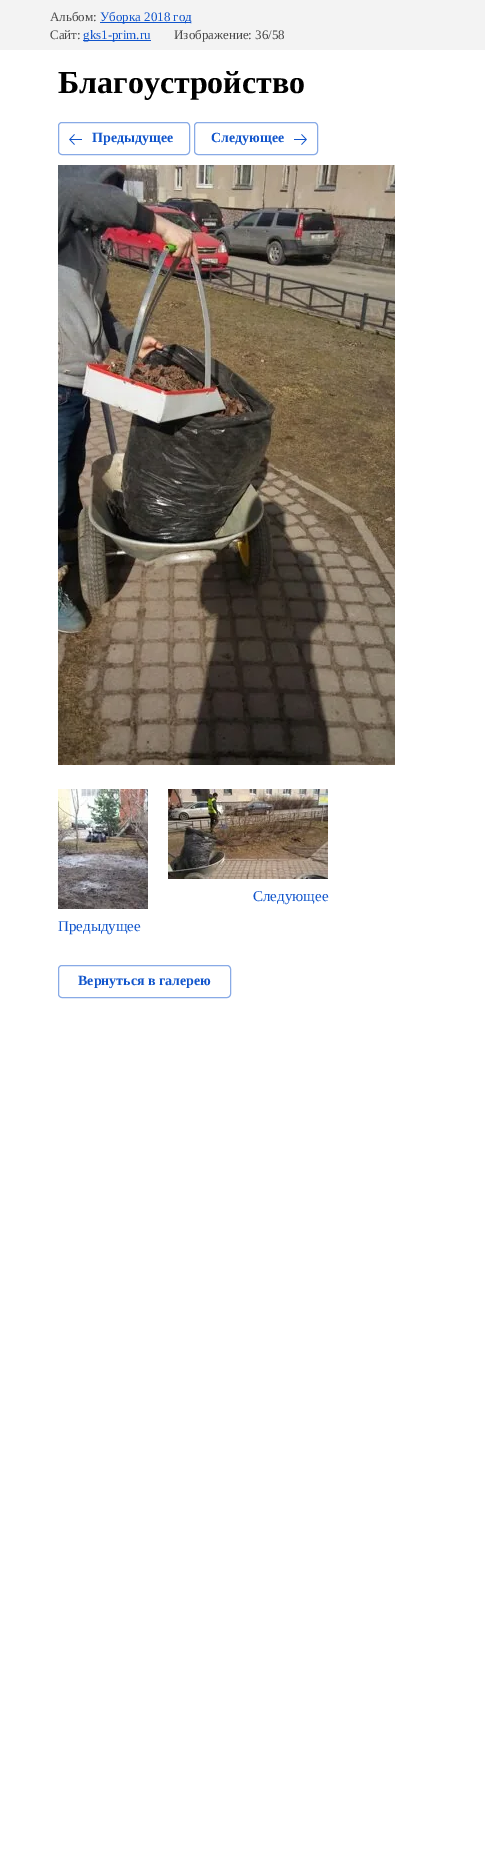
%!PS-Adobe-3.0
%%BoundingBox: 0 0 485 1875
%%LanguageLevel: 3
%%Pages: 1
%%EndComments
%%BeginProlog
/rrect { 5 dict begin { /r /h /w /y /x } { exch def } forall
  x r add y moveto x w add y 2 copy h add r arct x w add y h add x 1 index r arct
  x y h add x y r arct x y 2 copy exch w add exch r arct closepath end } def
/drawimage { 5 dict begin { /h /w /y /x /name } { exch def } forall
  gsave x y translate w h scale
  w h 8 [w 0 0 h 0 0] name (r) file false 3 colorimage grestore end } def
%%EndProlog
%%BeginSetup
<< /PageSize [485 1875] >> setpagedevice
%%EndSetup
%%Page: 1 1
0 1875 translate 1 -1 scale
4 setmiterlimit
1 setgray
0 0 485 1875 rectfill
0.953 setgray
0 0 485 50 rectfill
0.067 0.333 0.8 setrgbcolor
100 22 91 1 rectfill
83 40 68 1 rectfill
0.533 0.667 0.902 setrgbcolor
58.5 122.5 131 32 3.5 rrect stroke
(images/1.raw) 69 134 13 11 drawimage
194.5 122.5 123 32 3.5 rrect stroke
(images/2.raw) 294 134 13 11 drawimage
(images/3.raw) 58 165 337 600 drawimage
(images/4.raw) 168 789 160 90 drawimage
(images/5.raw) 58 789 90 120 drawimage
58.5 965.5 172 32 3.5 rrect stroke
/LiberationSerif-Regular [13 0 0 -13 0 0] selectfont
0.282 setgray
50 21 moveto (Альбом:) show
0.067 0.333 0.8 setrgbcolor
100 21 moveto (Уборка 2018 год) show
0.282 setgray
50 39 moveto (Сайт:) show
0.067 0.333 0.8 setrgbcolor
83 39 moveto (gks1-prim.ru) show
0.282 setgray
174 39 moveto (Изображение: 36/58) show
/LiberationSerif-Bold [32 0 0 -32 0 0] selectfont
0 setgray
58 93 moveto (Благоустройство) show
/LiberationSerif-Bold [14 0 0 -14 0 0] selectfont
0.067 0.333 0.8 setrgbcolor
92 142 moveto (Предыдущее) show
211 142 moveto (Следующее) show
/LiberationSerif-Regular [15 0 0 -15 0 0] selectfont
253 901 moveto (Следующее) show
58 931 moveto (Предыдущее) show
/LiberationSerif-Bold [14 0 0 -14 0 0] selectfont
78 985 moveto (Вернуться в галерею) show
showpage
%%EOF
